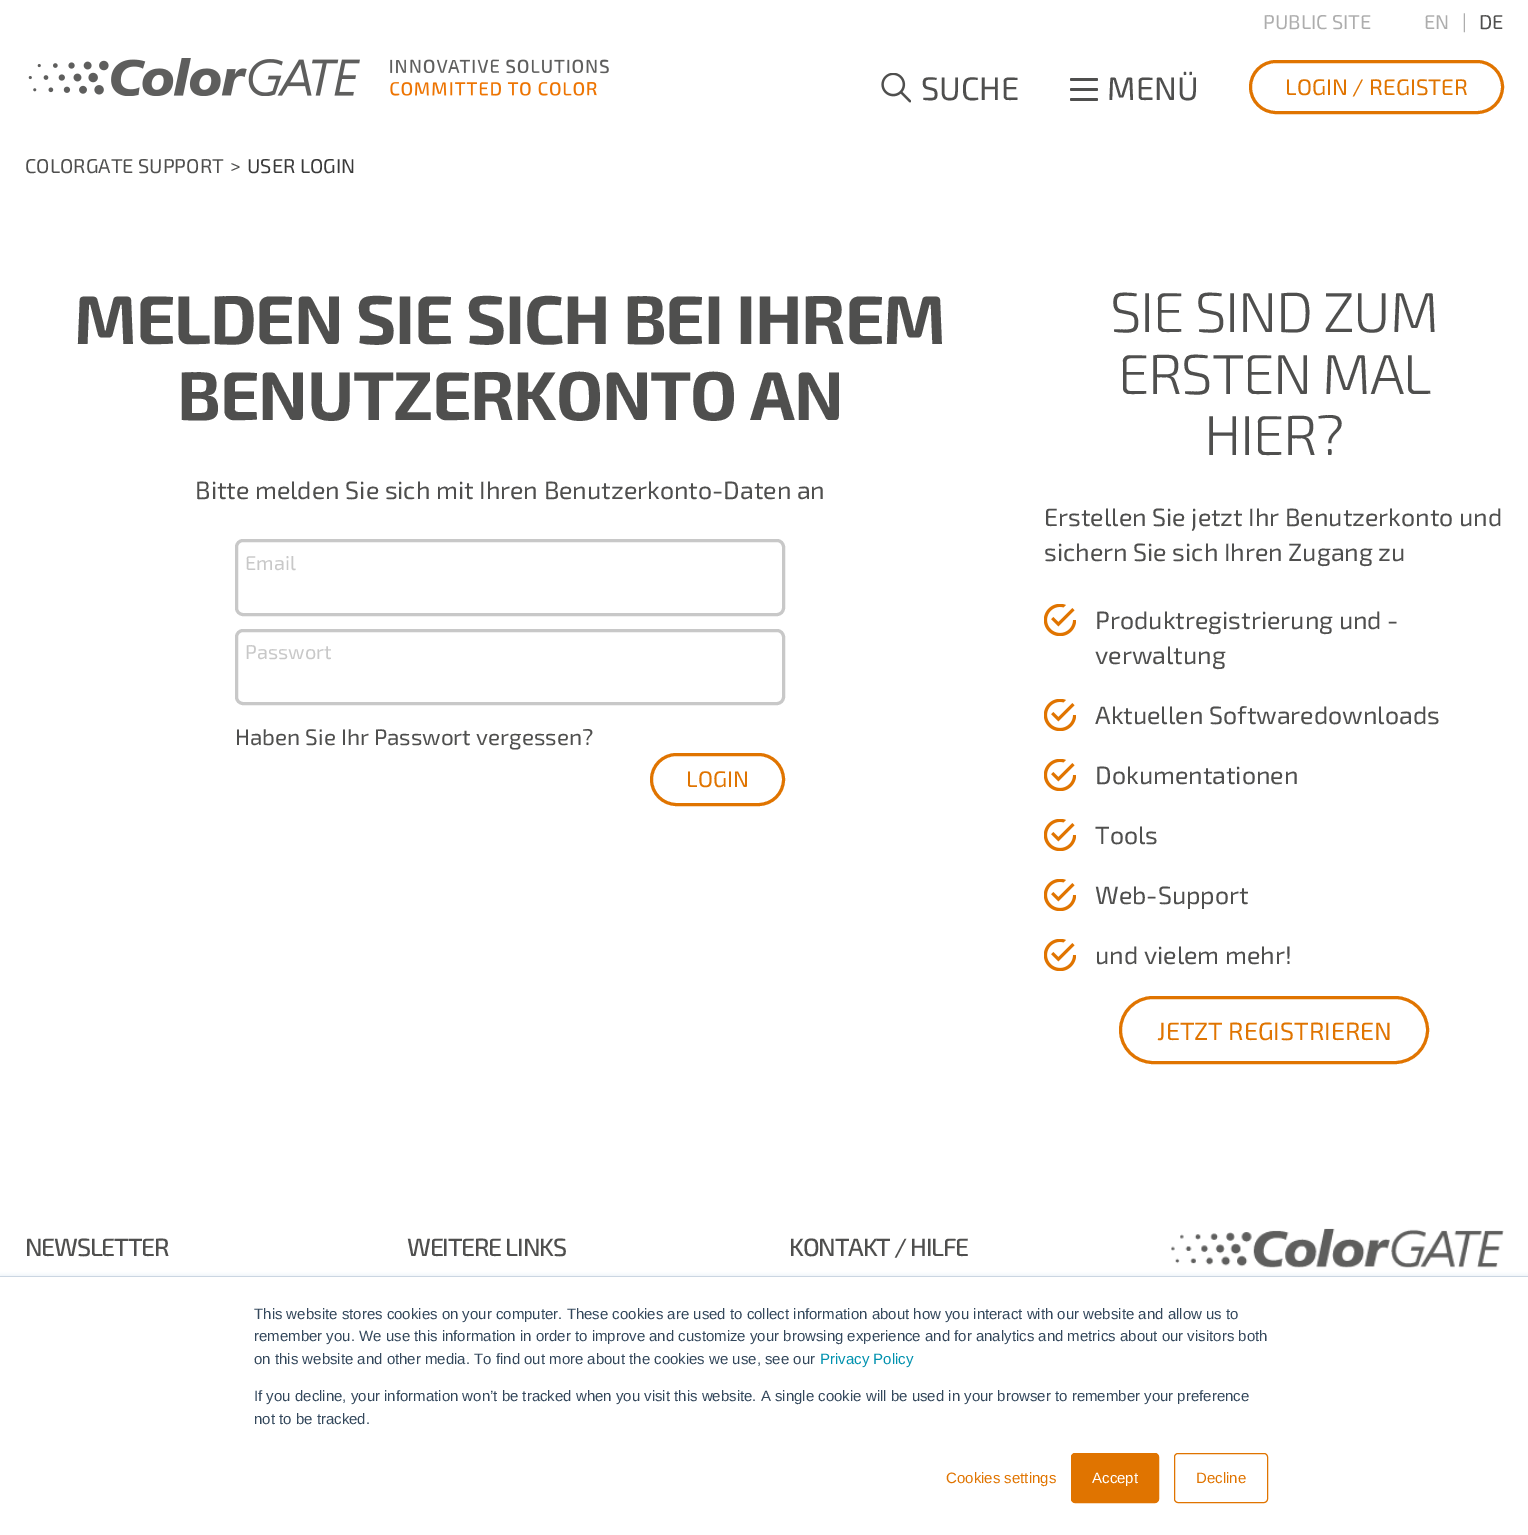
%!PS-Adobe-3.0
%%BoundingBox: 0 0 1528 1535
%%LanguageLevel: 3
%%Pages: 1
%%EndComments
%%BeginProlog
/setalpha { dup .setfillconstantalpha .setstrokeconstantalpha } def
/rrect { 5 dict begin { /r /h /w /y /x } { exch def } forall
  x r add y moveto x w add y 2 copy h add r arct x w add y h add x 1 index r arct
  x y h add x y r arct x y 2 copy exch w add exch r arct closepath end } def
/softshadow { 12 dict begin { /a /b /q /h /w /y /x } { exch def } forall gsave /was 0 def
  9 -2 -9 { dup b mul 4 div /e exch def 1 sub .425 mul 2.718 exch exp 1 add a .99 .min exch div /now exch def
    1 1 now sub 1 was sub div sub setalpha /was now def
    w h .min e 2 mul add 0 gt { x e sub y e sub w e 2 mul add h e 2 mul add
      q e add b .6 mul add w h .min 2 div e add .min 0 .max rrect fill } if } for grestore end } def
/drawimage { 5 dict begin { /h /w /y /x /name } { exch def } forall
  gsave x y translate w h scale
  w h 8 [w 0 0 h 0 0] name (r) file false 3 colorimage grestore end } def
%%EndProlog
%%BeginSetup
<< /PageSize [1528 1535] /PageUsesTransparency true >> setpagedevice
%%EndSetup
%%Page: 1 1
0 .pushpdf14devicefilter
0 1535 translate 1 -1 scale
4 setmiterlimit
1 setgray
0 0 1528 1535 rectfill
(images/1.raw) 28 58 581 38 drawimage
(images/2.raw) 881 73 30 30 drawimage
0.31 0.31 0.306 setrgbcolor
1070 78 28 3 1.5 rrect fill
1070 88 28 3 1.5 rrect fill
1070 98 28 3 1.5 rrect fill
0.878 0.455 0 setrgbcolor
3 setlinewidth
1250.5 61.5 252 51 25.5 rrect stroke
0.784 setgray
236.5 540.5 547 74 6.5 rrect stroke
236.5 630.5 547 73 6.5 rrect stroke
0.878 0.455 0 setrgbcolor
651.5 754.5 132 50 25 rrect stroke
(images/3.raw) 1044 604 32 32 drawimage
(images/3.raw) 1044 699 32 32 drawimage
(images/3.raw) 1044 759 32 32 drawimage
(images/3.raw) 1044 819 32 32 drawimage
(images/3.raw) 1044 879 32 32 drawimage
(images/3.raw) 1044 939 32 32 drawimage
1120.5 997.5 307 65 32.5 rrect stroke
(images/4.raw) 1171 1228 333 40 drawimage
0.918 0.941 0.965 setrgbcolor
0 1275 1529 259 0 2 1 softshadow
1 setgray
0 1277 1528 258 rectfill
0.796 0.839 0.886 setrgbcolor
0 1276 1528 1 rectfill
0.878 0.455 0 setrgbcolor
1071.5 1453.5 87 49 3.5 rrect gsave fill grestore
1 setlinewidth
stroke
1174.5 1453.5 93 49 3.5 rrect stroke
/Exo2-Regular [20 0 0 -20 0 0] selectfont
0.678 setgray
1263 29 moveto (PUBLIC SITE) show
1424 29 moveto (EN) show
1462 29 moveto (|) show
0.31 0.31 0.306 setrgbcolor
1479 29 moveto (DE) show
/Exo2-Regular [32.5 0 0 -32.5 0 0] selectfont
921 100 moveto (SUCHE) show
1107 100 moveto (MENÜ) show
/Exo2-Regular [22.5 0 0 -22.5 0 0] selectfont
0.878 0.455 0 setrgbcolor
1285 95 moveto (LOGIN / REGISTER) show
/Exo2-Regular [20 0 0 -20 0 0] selectfont
0.31 0.31 0.306 setrgbcolor
25 173 moveto (COLORGATE SUPPORT) show
230 173 moveto (>) show
0.224 setgray
247 173 moveto (USER LOGIN) show
/Exo2-Bold [68.75 0 0 -68.75 0 0] selectfont
0.31 0.31 0.306 setrgbcolor
74 344 moveto -1.25 0 (MELDEN SIE SICH BEI IHREM) ashow
177 420 moveto -1.25 0 (BENUTZERKONTO AN) ashow
/Exo2-Regular [25 0 0 -25 0 0] selectfont
195 499 moveto (Bitte melden Sie sich mit Ihren Benutzerkonto-Daten an) show
/Exo2-Regular [20 0 0 -20 0 0] selectfont
0.784 setgray
245 570 moveto (Email) show
245 659 moveto (Passwort) show
/Exo2-Regular [22.5 0 0 -22.5 0 0] selectfont
0.31 0.31 0.306 setrgbcolor
235 745 moveto (Haben Sie Ihr Passwort vergessen?) show
0.878 0.455 0 setrgbcolor
686 787 moveto (LOGIN) show
/Exo2-Light [56.25 0 0 -56.25 0 0] selectfont
0.31 0.31 0.306 setrgbcolor
1110 332 moveto -1.25 0 (SIE SIND ZUM) ashow
1118 394 moveto -1.25 0 (ERSTEN MAL) ashow
1204 455 moveto -1.25 0 (HIER?) ashow
/Exo2-Regular [25 0 0 -25 0 0] selectfont
1044 526 moveto (Erstellen Sie jetzt Ihr Benutzerkonto und) show
1044 561 moveto (sichern Sie sich Ihren Zugang zu) show
1095 629 moveto (Produktregistrierung und -) show
1095 664 moveto (verwaltung) show
1095 724 moveto (Aktuellen Softwaredownloads) show
1095 784 moveto (Dokumentationen) show
1095 844 moveto (Tools) show
1095 904 moveto (Web-Support) show
1095 964 moveto (und vielem mehr!) show
0.878 0.455 0 setrgbcolor
1157 1040 moveto (JETZT REGISTRIEREN) show
/Exo2-Medium [25 0 0 -25 0 0] selectfont
0.31 0.31 0.306 setrgbcolor
25 1256 moveto -1.25 0 (NEWSLETTER) ashow
407 1256 moveto -1.25 0 (WEITERE LINKS) ashow
789 1256 moveto -1.25 0 (KONTAKT / HILFE) ashow
/LiberationSans-Regular [15 0 0 -15 0 0] selectfont
0.2 0.278 0.357 setrgbcolor
254 1319 moveto (This website stores cookies on your computer. These cookies are used to collect information about how you interact with our website and allow us to) show
254 1341 moveto (remember you. We use this information in order to improve and customize your browsing experience and for analytics and metrics about our visitors both) show
254 1364 moveto (on this website and other media. To find out more about the cookies we use, see our) show
0 0.569 0.682 setrgbcolor
820 1364 moveto (Privacy Policy) show
0.2 0.278 0.357 setrgbcolor
254 1401 moveto (If you decline, your information won’t be tracked when you visit this website. A single cookie will be used in your browser to remember your preference) show
254 1424 moveto (not to be tracked.) show
0.878 0.455 0 setrgbcolor
946 1483 moveto (Cookies settings) show
1 setgray
1092 1483 moveto (Accept) show
0.878 0.455 0 setrgbcolor
1196 1483 moveto (Decline) show
.poppdf14devicefilter showpage
%%EOF
